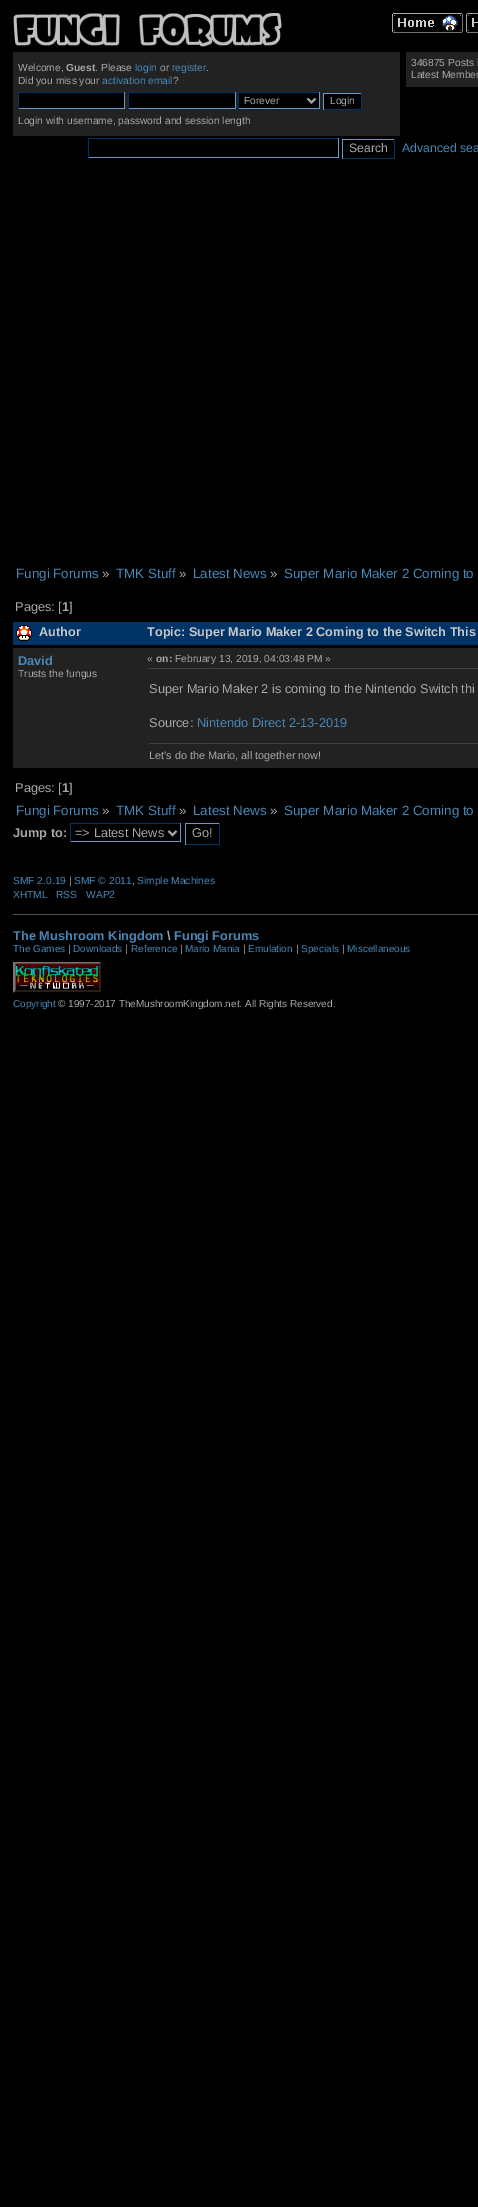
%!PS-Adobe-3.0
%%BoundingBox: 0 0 478 2207
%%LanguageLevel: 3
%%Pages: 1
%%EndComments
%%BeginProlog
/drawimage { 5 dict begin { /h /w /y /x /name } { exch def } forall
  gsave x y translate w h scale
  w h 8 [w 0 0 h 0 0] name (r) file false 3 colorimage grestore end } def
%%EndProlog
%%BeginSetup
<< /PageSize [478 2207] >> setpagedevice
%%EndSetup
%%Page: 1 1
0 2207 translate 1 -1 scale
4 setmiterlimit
0 setgray
0 0 478 2207 rectfill
(images/1.raw) 13 13 269 34 drawimage
(images/2.raw) 392 13 71 20 drawimage
(images/3.raw) 466 13 12 20 drawimage
0.133 setgray
13 52 387 84 rectfill
0 setgray
19 93 105 15 rectfill
0 0.2 0.4 setrgbcolor
18 92 107 1 rectfill
0.4 0.6 0.8 setrgbcolor
124 92 1 17 rectfill
18 108 107 1 rectfill
0 0.2 0.4 setrgbcolor
18 92 1 17 rectfill
0 setgray
129 93 106 15 rectfill
0 0.2 0.4 setrgbcolor
128 92 108 1 rectfill
0.4 0.6 0.8 setrgbcolor
235 92 1 17 rectfill
128 108 108 1 rectfill
0 0.2 0.4 setrgbcolor
128 92 1 17 rectfill
0 setgray
239 93 80 15 rectfill
0 0.2 0.4 setrgbcolor
238 92 82 1 rectfill
0.4 0.6 0.8 setrgbcolor
319 92 1 17 rectfill
238 108 82 1 rectfill
0 0.2 0.4 setrgbcolor
238 92 1 17 rectfill
0.659 setgray
2 setlinewidth
newpath 307.5 98.5 moveto 311.5 102.5 lineto 315.5 98.5 lineto stroke
0 setgray
324 94 37 15 rectfill
0.4 0.6 0.8 setrgbcolor
323 93 39 1 rectfill
0 0.2 0.4 setrgbcolor
361 93 1 17 rectfill
323 109 39 1 rectfill
0.4 0.6 0.8 setrgbcolor
323 93 1 17 rectfill
0.133 setgray
406 52 72 35 rectfill
0 0.2 0.4 setrgbcolor
88 138 251 1 rectfill
0.4 0.6 0.8 setrgbcolor
338 138 1 20 rectfill
88 157 251 1 rectfill
0 0.2 0.4 setrgbcolor
88 138 1 20 rectfill
0.4 0.6 0.8 setrgbcolor
342 139 53 1 rectfill
0 0.2 0.4 setrgbcolor
394 139 1 20 rectfill
342 158 53 1 rectfill
0.4 0.6 0.8 setrgbcolor
342 139 1 20 rectfill
0 0.2 0.4 setrgbcolor
13 622 465 23 rectfill
(images/4.raw) 16 625 16 16 drawimage
0.133 setgray
13 648 465 120 rectfill
0.251 setgray
149 668 329 1 rectfill
149 743 329 1 rectfill
0 0.2 0.4 setrgbcolor
70 823 111 1 rectfill
0.4 0.6 0.8 setrgbcolor
180 823 1 19 rectfill
70 841 111 1 rectfill
0 0.2 0.4 setrgbcolor
70 823 1 19 rectfill
0.659 setgray
newpath 168.5 831 moveto 172.5 835 lineto 176.5 831 lineto stroke
0.4 0.6 0.8 setrgbcolor
185 823 35 1 rectfill
0 0.2 0.4 setrgbcolor
219 823 1 22 rectfill
185 844 35 1 rectfill
0.4 0.6 0.8 setrgbcolor
185 823 1 22 rectfill
0.314 setgray
13 914 465 1 rectfill
(images/5.raw) 13 962 88 31 drawimage
/LiberationSans-Regular [10.25 0 0 -10.25 0 0] selectfont
0.659 setgray
18 71 moveto (Welcome,) show
/LiberationSans-Bold [10.25 0 0 -10.25 0 0] selectfont
66 71 moveto (Guest) show
/LiberationSans-Regular [10.25 0 0 -10.25 0 0] selectfont
95 71 moveto (. Please) show
0.282 0.533 0.722 setrgbcolor
135 71 moveto (login) show
0.659 setgray
160 71 moveto (or) show
0.282 0.533 0.722 setrgbcolor
172 71 moveto (register) show
0.659 setgray
206 71 moveto (.) show
18 84 moveto (Did you miss your) show
0.282 0.533 0.722 setrgbcolor
102 84 moveto (activation email) show
0.659 setgray
173 84 moveto (?) show
244 104 moveto (Forever) show
330 104 moveto (Login) show
18 124 moveto (Login with username, password and session length) show
411 66 moveto (346875 Posts i) show
411 78 moveto (Latest Member) show
/LiberationSans-Regular [12.25 0 0 -12.25 0 0] selectfont
349 152 moveto (Search) show
0.282 0.533 0.722 setrgbcolor
402 152 moveto (Advanced sea) show
/LiberationSans-Regular [13.4 0 0 -13.4 0 0] selectfont
16 578 moveto (Fungi Forums) show
0.659 setgray
102 578 moveto (») show
0.282 0.533 0.722 setrgbcolor
116 578 moveto (TMK Stuff) show
0.659 setgray
179 578 moveto (») show
0.282 0.533 0.722 setrgbcolor
193 578 moveto (Latest News) show
0.659 setgray
270 578 moveto (») show
0.282 0.533 0.722 setrgbcolor
284 578 moveto (Super Mario Maker 2 Coming to) show
/LiberationSans-Regular [12.8 0 0 -12.8 0 0] selectfont
0.659 setgray
15 611 moveto (Pages: [) show
/LiberationSans-Bold [12.8 0 0 -12.8 0 0] selectfont
62 611 moveto (1) show
/LiberationSans-Regular [12.8 0 0 -12.8 0 0] selectfont
69 611 moveto (]) show
/LiberationSans-Bold [12.7 0 0 -12.7 0 0] selectfont
0.784 setgray
39 636 moveto (Author) show
147 636 moveto (Topic: Super Mario Maker 2 Coming to the Switch This) show
/LiberationSans-Bold [12.8 0 0 -12.8 0 0] selectfont
0.282 0.533 0.722 setrgbcolor
18 665 moveto (David) show
/LiberationSans-Regular [10.25 0 0 -10.25 0 0] selectfont
0.659 setgray
18 677 moveto (Trusts the fungus) show
147 662 moveto («) show
/LiberationSans-Bold [10.25 0 0 -10.25 0 0] selectfont
156 662 moveto (on:) show
/LiberationSans-Regular [10.25 0 0 -10.25 0 0] selectfont
175 662 moveto (February 13, 2019, 04:03:48 PM ») show
/LiberationSans-Regular [12.8 0 0 -12.8 0 0] selectfont
149 693 moveto (Super Mario Maker 2 is coming to the Nintendo Switch thi) show
149 727 moveto (Source:) show
0.282 0.533 0.722 setrgbcolor
197 727 moveto (Nintendo Direct 2-13-2019) show
/LiberationSans-Regular [10.9 0 0 -10.9 0 0] selectfont
0.659 setgray
149 759 moveto (Let's do the Mario, all together now!) show
/LiberationSans-Regular [12.8 0 0 -12.8 0 0] selectfont
15 792 moveto (Pages: [) show
/LiberationSans-Bold [12.8 0 0 -12.8 0 0] selectfont
62 792 moveto (1) show
/LiberationSans-Regular [12.8 0 0 -12.8 0 0] selectfont
69 792 moveto (]) show
/LiberationSans-Regular [13.4 0 0 -13.4 0 0] selectfont
0.282 0.533 0.722 setrgbcolor
16 815 moveto (Fungi Forums) show
0.659 setgray
102 815 moveto (») show
0.282 0.533 0.722 setrgbcolor
116 815 moveto (TMK Stuff) show
0.659 setgray
179 815 moveto (») show
0.282 0.533 0.722 setrgbcolor
193 815 moveto (Latest News) show
0.659 setgray
270 815 moveto (») show
0.282 0.533 0.722 setrgbcolor
284 815 moveto (Super Mario Maker 2 Coming to) show
/LiberationSans-Bold [12.8 0 0 -12.8 0 0] selectfont
0.659 setgray
13 837 moveto (Jump to:) show
/LiberationSans-Regular [12.8 0 0 -12.8 0 0] selectfont
75 837 moveto (=> Latest News) show
192 837 moveto (Go!) show
/LiberationSans-Regular [10.25 0 0 -10.25 0 0] selectfont
0.282 0.533 0.722 setrgbcolor
13 884 moveto (SMF 2.0.19) show
0.659 setgray
69 884 moveto (|) show
0.282 0.533 0.722 setrgbcolor
74 884 moveto (SMF © 2011) show
0.659 setgray
132 884 moveto (,) show
0.282 0.533 0.722 setrgbcolor
137 884 moveto (Simple Machines) show
13 898 moveto (XHTML) show
56 898 moveto (RSS) show
86 898 moveto (WAP2) show
/LiberationSans-Bold [12.8 0 0 -12.8 0 0] selectfont
13 940 moveto (The Mushroom Kingdom) show
0.659 setgray
167 940 moveto (\\) show
0.282 0.533 0.722 setrgbcolor
174 940 moveto (Fungi Forums) show
/LiberationSans-Regular [10 0 0 -10 0 0] selectfont
13 952 moveto (The Games) show
0.659 setgray
68 952 moveto (|) show
0.282 0.533 0.722 setrgbcolor
73 952 moveto (Downloads) show
0.659 setgray
125 952 moveto (|) show
0.282 0.533 0.722 setrgbcolor
131 952 moveto (Reference) show
0.659 setgray
180 952 moveto (|) show
0.282 0.533 0.722 setrgbcolor
185 952 moveto (Mario Mania) show
0.659 setgray
243 952 moveto (|) show
0.282 0.533 0.722 setrgbcolor
248 952 moveto (Emulation) show
0.659 setgray
296 952 moveto (|) show
0.282 0.533 0.722 setrgbcolor
301 952 moveto (Specials) show
0.659 setgray
342 952 moveto (|) show
0.282 0.533 0.722 setrgbcolor
347 952 moveto (Miscellaneous) show
13 1007 moveto (Copyright) show
0.659 setgray
58 1007 moveto (© 1997-2017 TheMushroomKingdom.net. All Rights Reserved.) show
showpage
%%EOF
